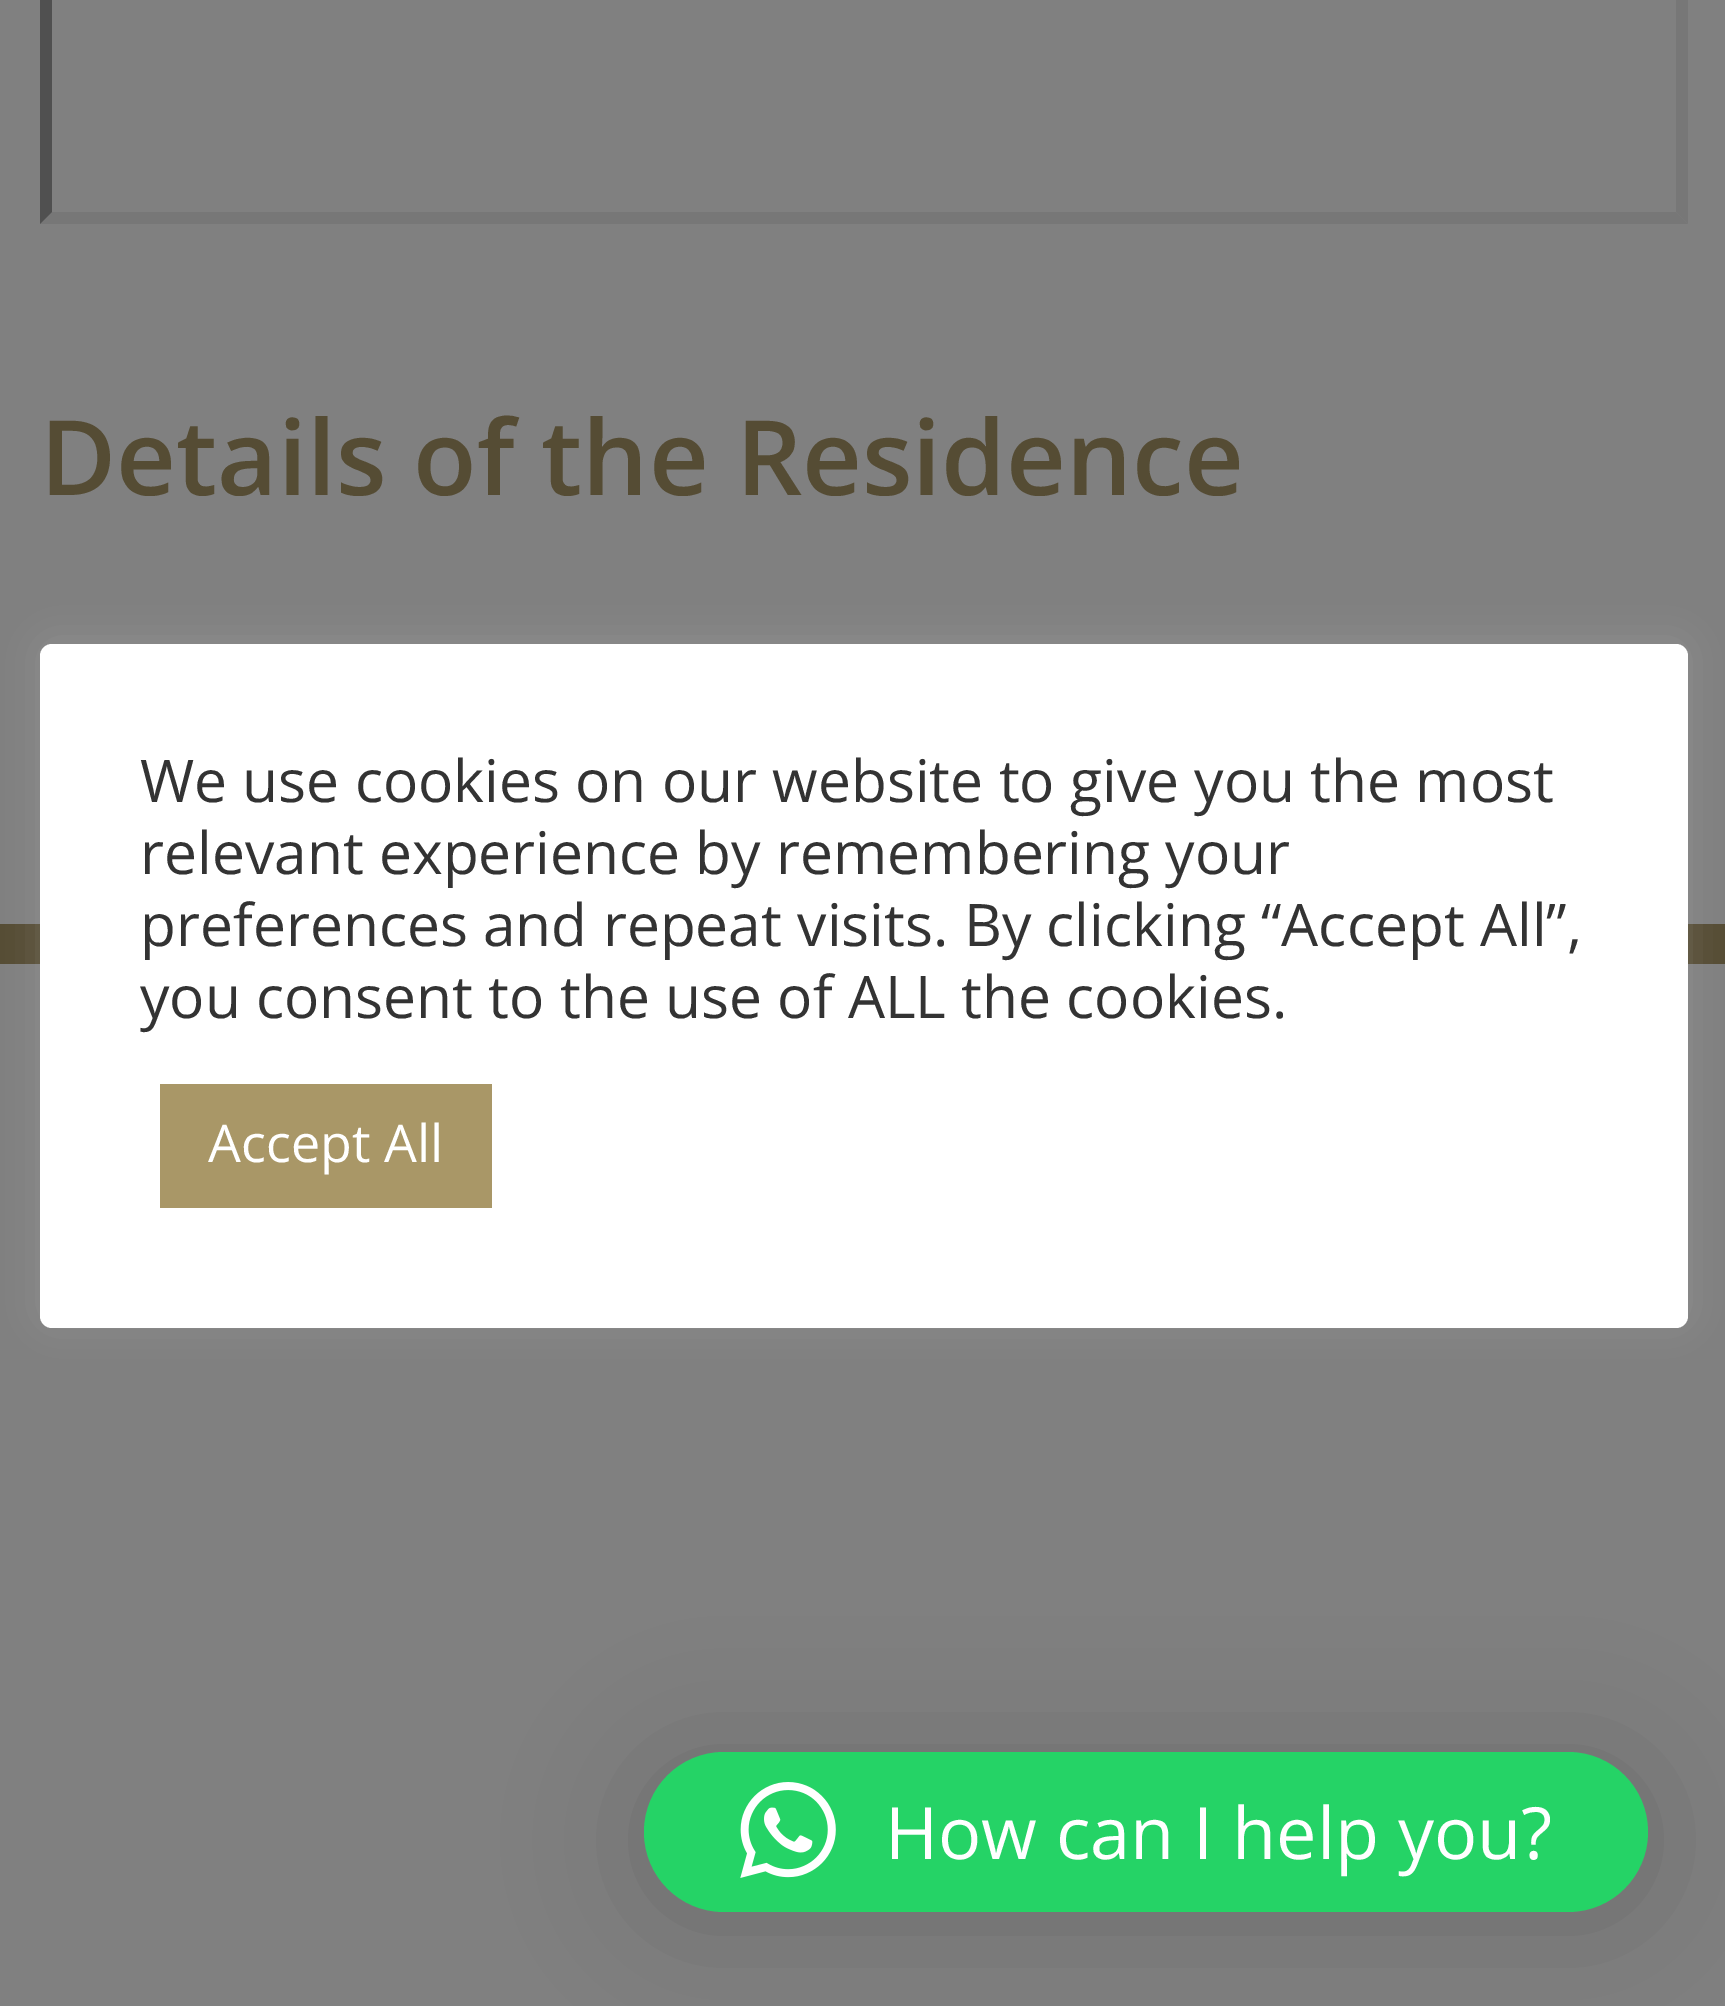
%!PS-Adobe-3.0
%%BoundingBox: 0 0 1725 2006
%%LanguageLevel: 3
%%Pages: 1
%%EndComments
%%BeginProlog
/setalpha { dup .setfillconstantalpha .setstrokeconstantalpha } def
/rrect { 5 dict begin { /r /h /w /y /x } { exch def } forall
  x r add y moveto x w add y 2 copy h add r arct x w add y h add x 1 index r arct
  x y h add x y r arct x y 2 copy exch w add exch r arct closepath end } def
/softshadow { 12 dict begin { /a /b /q /h /w /y /x } { exch def } forall gsave /was 0 def
  9 -2 -9 { dup b mul 4 div /e exch def 1 sub .425 mul 2.718 exch exp 1 add a .99 .min exch div /now exch def
    1 1 now sub 1 was sub div sub setalpha /was now def
    w h .min e 2 mul add 0 gt { x e sub y e sub w e 2 mul add h e 2 mul add
      q e add b .6 mul add w h .min 2 div e add .min 0 .max rrect fill } if } for grestore end } def
/drawimage { 5 dict begin { /h /w /y /x /name } { exch def } forall
  gsave x y translate w h scale
  w h 8 [w 0 0 h 0 0] name (r) file false 3 colorimage grestore end } def
%%EndProlog
%%BeginSetup
<< /PageSize [1725 2006] /PageUsesTransparency true >> setpagedevice
%%EndSetup
%%Page: 1 1
0 .pushpdf14devicefilter
0 2006 translate 1 -1 scale
4 setmiterlimit
0.502 setgray
0 0 1725 2006 rectfill
0.467 setgray
newpath 1688 -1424 moveto 1688 224 lineto 1676 212 lineto 1676 -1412 lineto closepath fill
newpath 1688 224 moveto 40 224 lineto 52 212 lineto 1676 212 lineto closepath fill
0.314 setgray
newpath 40 224 moveto 40 -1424 lineto 52 -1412 lineto 52 212 lineto closepath fill
0.333 0.298 0.204 setrgbcolor
0 924 1725 40 rectfill
0.675 0.671 0.671 setrgbcolor
40 640 1648 684 12 20 0.3 softshadow
1 setgray
40 644 1648 684 12 rrect fill
0.663 0.592 0.404 setrgbcolor
160 1084 332 124 rectfill
0 setgray
644 1760 1004 160 80 64 0.16 softshadow
0.145 0.827 0.4 setrgbcolor
644 1752 1004 160 80 rrect fill
(images/1.raw) 740 1782 96 96 drawimage
/OpenSans-SemiBold [104 0 0 -104 0 0] selectfont
0.333 0.298 0.204 setrgbcolor
40 495 moveto (Details of the Residence) show
/OpenSans-Regular [58.7 0 0 -58.7 0 0] selectfont
0.2 setgray
140 802 moveto (We use cookies on our website to give you the most) show
140 874 moveto (relevant experience by remembering your) show
140 946 moveto (preferences and repeat visits. By clicking “Accept All”,) show
140 1018 moveto (you consent to the use of ALL the cookies.) show
/OpenSans-Regular [52 0 0 -52 0 0] selectfont
1 setgray
208 1162 moveto (Accept All) show
/OpenSans-Regular [72 0 0 -72 0 0] selectfont
885 1859 moveto (How can I help you?) show
.poppdf14devicefilter showpage
%%EOF
